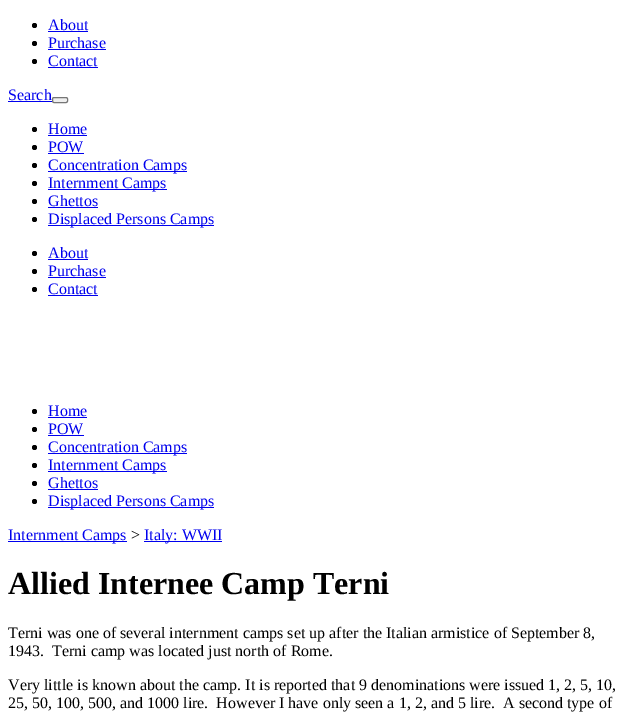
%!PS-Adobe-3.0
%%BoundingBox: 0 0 628 720
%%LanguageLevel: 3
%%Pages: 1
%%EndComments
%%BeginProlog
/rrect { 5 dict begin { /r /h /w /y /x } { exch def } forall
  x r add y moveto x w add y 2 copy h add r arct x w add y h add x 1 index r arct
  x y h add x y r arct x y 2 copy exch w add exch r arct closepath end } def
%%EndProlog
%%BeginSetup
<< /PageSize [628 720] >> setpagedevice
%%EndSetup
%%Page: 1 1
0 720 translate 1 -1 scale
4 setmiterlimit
1 setgray
0 0 628 720 rectfill
0 setgray
newpath 34.5 25.5 2.5 0 360 arc closepath fill
0 0 0.933 setrgbcolor
48 31 40 1 rectfill
0 setgray
newpath 34.5 43.5 2.5 0 360 arc closepath fill
0 0 0.933 setrgbcolor
48 49 58 1 rectfill
0 setgray
newpath 34.5 61.5 2.5 0 360 arc closepath fill
0 0 0.933 setrgbcolor
48 67 50 1 rectfill
8 101 44 1 rectfill
0.937 setgray
52.5 97.5 15 5 1.5 rrect gsave fill grestore
0.463 setgray
stroke
0 setgray
newpath 34.5 129.5 2.5 0 360 arc closepath fill
0 0 0.933 setrgbcolor
48 135 39 1 rectfill
0 setgray
newpath 34.5 147.5 2.5 0 360 arc closepath fill
0 0 0.933 setrgbcolor
48 153 36 1 rectfill
0 setgray
newpath 34.5 165.5 2.5 0 360 arc closepath fill
0 0 0.933 setrgbcolor
48 171 139 1 rectfill
0 setgray
newpath 34.5 183.5 2.5 0 360 arc closepath fill
0 0 0.933 setrgbcolor
48 189 119 1 rectfill
0 setgray
newpath 34.5 201.5 2.5 0 360 arc closepath fill
0 0 0.933 setrgbcolor
48 207 50 1 rectfill
0 setgray
newpath 34.5 219.5 2.5 0 360 arc closepath fill
0 0 0.933 setrgbcolor
48 225 166 1 rectfill
0 setgray
newpath 34.5 253.5 2.5 0 360 arc closepath fill
0 0 0.933 setrgbcolor
48 259 40 1 rectfill
0 setgray
newpath 34.5 271.5 2.5 0 360 arc closepath fill
0 0 0.933 setrgbcolor
48 277 58 1 rectfill
0 setgray
newpath 34.5 289.5 2.5 0 360 arc closepath fill
0 0 0.933 setrgbcolor
48 295 50 1 rectfill
0 setgray
newpath 34.5 411.5 2.5 0 360 arc closepath fill
0 0 0.933 setrgbcolor
48 417 39 1 rectfill
0 setgray
newpath 34.5 429.5 2.5 0 360 arc closepath fill
0 0 0.933 setrgbcolor
48 435 36 1 rectfill
0 setgray
newpath 34.5 447.5 2.5 0 360 arc closepath fill
0 0 0.933 setrgbcolor
48 453 139 1 rectfill
0 setgray
newpath 34.5 465.5 2.5 0 360 arc closepath fill
0 0 0.933 setrgbcolor
48 471 119 1 rectfill
0 setgray
newpath 34.5 483.5 2.5 0 360 arc closepath fill
0 0 0.933 setrgbcolor
48 489 50 1 rectfill
0 setgray
newpath 34.5 501.5 2.5 0 360 arc closepath fill
0 0 0.933 setrgbcolor
48 507 166 1 rectfill
8 541 119 1 rectfill
144 541 78 1 rectfill
/LiberationSerif-Regular [16 0 0 -16 0 0] selectfont
48 30 moveto (About) show
48 48 moveto (Purchase) show
48 66 moveto (Contact) show
8 100 moveto (Search) show
48 134 moveto (Home) show
48 152 moveto (POW) show
48 170 moveto (Concentration Camps) show
48 188 moveto (Internment Camps) show
48 206 moveto (Ghettos) show
48 224 moveto (Displaced Persons Camps) show
48 258 moveto (About) show
48 276 moveto (Purchase) show
48 294 moveto (Contact) show
48 416 moveto (Home) show
48 434 moveto (POW) show
48 452 moveto (Concentration Camps) show
48 470 moveto (Internment Camps) show
48 488 moveto (Ghettos) show
48 506 moveto (Displaced Persons Camps) show
8 540 moveto (Internment Camps) show
0 setgray
131 540 moveto (>) show
0 0 0.933 setrgbcolor
144 540 moveto (Italy: WWII) show
/LiberationSerif-Bold [32 0 0 -32 0 0] selectfont
0 setgray
8 594 moveto (Allied Internee Camp Terni) show
/LiberationSerif-Regular [16 0 0 -16 0 0] selectfont
8 638 moveto (Terni was one of several internment camps set up after the Italian armistice of September 8,) show
8 656 moveto (1943.  Terni camp was located just north of Rome.) show
8 690 moveto (Very little is known about the camp. It is reported that 9 denominations were issued 1, 2, 5, 10,) show
8 708 moveto (25, 50, 100, 500, and 1000 lire.  However I have only seen a 1, 2, and 5 lire.  A second type of) show
showpage
%%EOF
